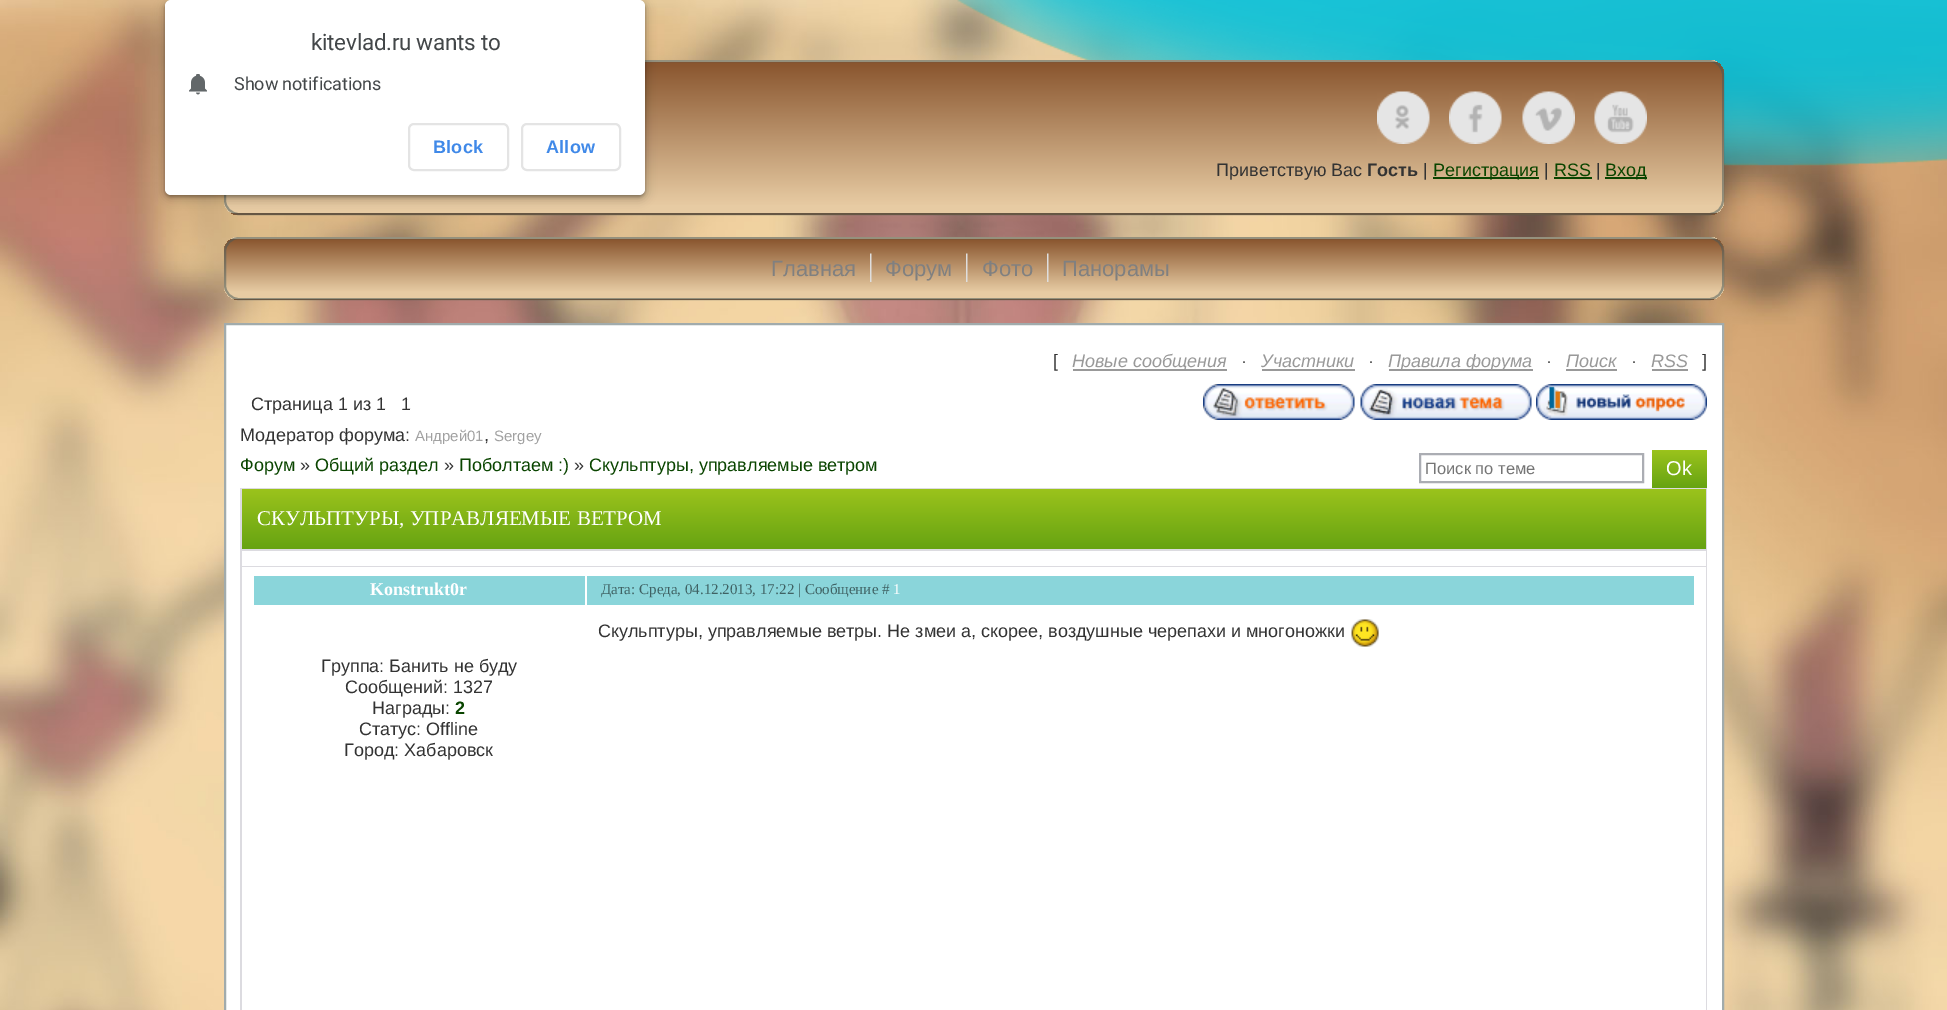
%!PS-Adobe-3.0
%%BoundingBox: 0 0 1947 1010
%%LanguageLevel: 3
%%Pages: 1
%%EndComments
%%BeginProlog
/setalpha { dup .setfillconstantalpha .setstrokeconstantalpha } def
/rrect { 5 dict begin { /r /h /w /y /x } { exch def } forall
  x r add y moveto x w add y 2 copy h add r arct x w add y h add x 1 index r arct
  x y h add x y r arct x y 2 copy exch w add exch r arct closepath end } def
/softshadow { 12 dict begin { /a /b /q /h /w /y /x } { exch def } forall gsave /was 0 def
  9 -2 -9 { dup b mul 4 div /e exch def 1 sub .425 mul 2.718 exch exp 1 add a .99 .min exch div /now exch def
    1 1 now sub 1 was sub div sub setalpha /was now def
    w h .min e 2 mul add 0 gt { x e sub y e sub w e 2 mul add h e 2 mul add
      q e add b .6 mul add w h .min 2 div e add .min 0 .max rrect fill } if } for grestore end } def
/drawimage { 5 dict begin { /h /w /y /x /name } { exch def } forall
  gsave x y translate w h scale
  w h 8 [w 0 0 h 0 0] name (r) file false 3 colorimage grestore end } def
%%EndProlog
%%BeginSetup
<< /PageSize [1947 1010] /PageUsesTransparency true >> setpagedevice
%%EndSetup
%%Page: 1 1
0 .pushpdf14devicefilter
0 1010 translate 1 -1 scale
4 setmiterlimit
1 setgray
0 0 1947 1010 rectfill
(images/2.raw) 0 0 1947 1010 drawimage
(images/3.raw) 957 0 990 166 drawimage
gsave
224 60 1500 155 15 rrect clip newpath
gsave newpath 645 60 moveto 1724 60 lineto 1724 62 lineto 645 62 lineto closepath clip newpath
<< /ShadingType 2 /ColorSpace /DeviceRGB /Coords [974 62 974 -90] /Extend [true true] /Function << /FunctionType 3 /Domain [0 1] /Functions [<< /FunctionType 2 /Domain [0 1] /C0 [0.906 0.796 0.639] /C1 [0.906 0.796 0.639] /N 1 >> << /FunctionType 2 /Domain [0 1] /C0 [0.906 0.796 0.639] /C1 [0.906 0.796 0.639] /N 1 >> << /FunctionType 2 /Domain [0 1] /C0 [0.906 0.796 0.639] /C1 [0.537 0.333 0.18] /N 1 >>] /Bounds [0.02 0.05] /Encode [0 1 0 1 0 1] >> >> shfill grestore
gsave newpath 224 62 moveto 1724 62 lineto 1724 213 lineto 224 213 lineto closepath clip newpath
<< /ShadingType 2 /ColorSpace /DeviceRGB /Coords [974 213 974 62] /Extend [true true] /Function << /FunctionType 3 /Domain [0 1] /Functions [<< /FunctionType 2 /Domain [0 1] /C0 [0.906 0.796 0.639] /C1 [0.906 0.796 0.639] /N 1 >> << /FunctionType 2 /Domain [0 1] /C0 [0.906 0.796 0.639] /C1 [0.906 0.796 0.639] /N 1 >> << /FunctionType 2 /Domain [0 1] /C0 [0.906 0.796 0.639] /C1 [0.537 0.333 0.18] /N 1 >>] /Bounds [0.02 0.05] /Encode [0 1 0 1 0 1] >> >> shfill grestore
gsave newpath 224 213 moveto 1724 213 lineto 1724 215 lineto 224 215 lineto closepath clip newpath
<< /ShadingType 2 /ColorSpace /DeviceRGB /Coords [974 365 974 213] /Extend [true true] /Function << /FunctionType 3 /Domain [0 1] /Functions [<< /FunctionType 2 /Domain [0 1] /C0 [0.906 0.796 0.639] /C1 [0.906 0.796 0.639] /N 1 >> << /FunctionType 2 /Domain [0 1] /C0 [0.906 0.796 0.639] /C1 [0.906 0.796 0.639] /N 1 >> << /FunctionType 2 /Domain [0 1] /C0 [0.906 0.796 0.639] /C1 [0.537 0.333 0.18] /N 1 >>] /Bounds [0.02 0.05] /Encode [0 1 0 1 0 1] >> >> shfill grestore
grestore
0.5 setalpha
0.263 0.341 0.345 setrgbcolor
2 setlinewidth
225 61 1498 153 14 rrect stroke
1 setalpha
0 setgray
162 0 486 201 9 4.5 0.15 softshadow
165 2 480 195 6 1.5 0.3 softshadow
1 setgray
165 0 480 195 6 rrect fill
(images/1.raw) 189 74 18 21 drawimage
0.894 setgray
409 124 99 46 5 rrect stroke
522 124 98 46 5 rrect stroke
(images/4.raw) 1377 91 53 53 drawimage
(images/5.raw) 1449 91 53 53 drawimage
(images/6.raw) 1522 91 53 53 drawimage
(images/7.raw) 1594 91 53 53 drawimage
0.039 0.271 0 setrgbcolor
1433 177 106 2 rectfill
1554 177 38 2 rectfill
1605 177 42 2 rectfill
gsave
224 237 1500 63 15 rrect clip newpath
gsave newpath 224 237 moveto 1724 237 lineto 1724 239 lineto 224 239 lineto closepath clip newpath
<< /ShadingType 2 /ColorSpace /DeviceRGB /Coords [974 239 974 179] /Extend [true true] /Function << /FunctionType 3 /Domain [0 1] /Functions [<< /FunctionType 2 /Domain [0 1] /C0 [0.906 0.796 0.639] /C1 [0.906 0.796 0.639] /N 1 >> << /FunctionType 2 /Domain [0 1] /C0 [0.906 0.796 0.639] /C1 [0.906 0.796 0.639] /N 1 >> << /FunctionType 2 /Domain [0 1] /C0 [0.906 0.796 0.639] /C1 [0.537 0.333 0.18] /N 1 >>] /Bounds [0.02 0.12] /Encode [0 1 0 1 0 1] >> >> shfill grestore
gsave newpath 224 239 moveto 1724 239 lineto 1724 299 lineto 224 299 lineto closepath clip newpath
<< /ShadingType 2 /ColorSpace /DeviceRGB /Coords [974 299 974 239] /Extend [true true] /Function << /FunctionType 3 /Domain [0 1] /Functions [<< /FunctionType 2 /Domain [0 1] /C0 [0.906 0.796 0.639] /C1 [0.906 0.796 0.639] /N 1 >> << /FunctionType 2 /Domain [0 1] /C0 [0.906 0.796 0.639] /C1 [0.906 0.796 0.639] /N 1 >> << /FunctionType 2 /Domain [0 1] /C0 [0.906 0.796 0.639] /C1 [0.537 0.333 0.18] /N 1 >>] /Bounds [0.02 0.12] /Encode [0 1 0 1 0 1] >> >> shfill grestore
gsave newpath 234 299 moveto 1714 299 lineto 1714 300 lineto 234 300 lineto closepath clip newpath
<< /ShadingType 2 /ColorSpace /DeviceRGB /Coords [974 359 974 299] /Extend [true true] /Function << /FunctionType 3 /Domain [0 1] /Functions [<< /FunctionType 2 /Domain [0 1] /C0 [0.906 0.796 0.639] /C1 [0.906 0.796 0.639] /N 1 >> << /FunctionType 2 /Domain [0 1] /C0 [0.906 0.796 0.639] /C1 [0.906 0.796 0.639] /N 1 >> << /FunctionType 2 /Domain [0 1] /C0 [0.906 0.796 0.639] /C1 [0.537 0.333 0.18] /N 1 >>] /Bounds [0.02 0.12] /Encode [0 1 0 1 0 1] >> >> shfill grestore
grestore
0.5 setalpha
0.263 0.341 0.345 setrgbcolor
225 238 1498 61 14 rrect stroke
1 setalpha
(images/8.raw) 870 253 2 29 drawimage
(images/8.raw) 966 253 2 29 drawimage
(images/8.raw) 1047 253 2 29 drawimage
1 setgray
newpath 225 324 moveto 1723 324 lineto 1723 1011 lineto 225 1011 lineto closepath gsave fill grestore
0.631 0.671 0.675 setrgbcolor
stroke
0.6 setgray
1073 369 154 2 rectfill
1262 369 93 2 rectfill
1389 369 144 2 rectfill
1566 369 51 2 rectfill
1652 369 36 2 rectfill
(images/9.raw) 1203 384 152 36 drawimage
(images/10.raw) 1360 384 172 36 drawimage
(images/11.raw) 1536 384 171 36 drawimage
0.671 0.678 0.702 setrgbcolor
1420 454 223 28 rectstroke
gsave newpath 1652 450 moveto 1707 450 lineto 1707 488 lineto 1652 488 lineto closepath clip newpath
<< /ShadingType 2 /ColorSpace /DeviceRGB /Coords [1679 488 1679 450] /Extend [true true] /Function << /FunctionType 2 /Domain [0 1] /C0 [0.4 0.639 0.071] /C1 [0.608 0.765 0.11] /N 1 >> >> shfill grestore
0.863 0.859 0.878 setrgbcolor
240 488 1467 522 rectfill
gsave newpath 242 489 moveto 1706 489 lineto 1706 549 lineto 242 549 lineto closepath clip newpath
<< /ShadingType 2 /ColorSpace /DeviceRGB /Coords [974 549 974 489] /Extend [true true] /Function << /FunctionType 2 /Domain [0 1] /C0 [0.4 0.639 0.071] /C1 [0.608 0.765 0.11] /N 1 >> >> shfill grestore
1 setgray
242 551 1464 15 rectfill
242 567 1464 443 rectfill
0.541 0.835 0.855 setrgbcolor
254 576 331 29 rectfill
587 576 1107 29 rectfill
(images/12.raw) 1351 619 28 28 drawimage
/Roboto-Regular [22.5 0 0 -22.5 0 0] selectfont
0.263 0.278 0.286 setrgbcolor
311 50 moveto -0.3 0 (kitevlad.ru wants to) ashow
/Roboto-Regular [18 0 0 -18 0 0] selectfont
234 90 moveto -0.1 0 (Show notifications) ashow
/LiberationSans-Bold [18 0 0 -18 0 0] selectfont
0.251 0.537 0.91 setrgbcolor
433 153 moveto 0.25 0 (Block) ashow
546 153 moveto 0.25 0 (Allow) ashow
/LiberationSans-Regular [18 0 0 -18 0 0] selectfont
0.2 setgray
1216 176 moveto (Приветствую Вас) show
/LiberationSans-Bold [18 0 0 -18 0 0] selectfont
1367 176 moveto (Гость) show
/LiberationSans-Regular [18 0 0 -18 0 0] selectfont
1423 176 moveto (|) show
0.039 0.271 0 setrgbcolor
1433 176 moveto (Регистрация) show
0.2 setgray
1544 176 moveto (|) show
0.039 0.271 0 setrgbcolor
1554 176 moveto (RSS) show
0.2 setgray
1596 176 moveto (|) show
0.039 0.271 0 setrgbcolor
1605 176 moveto (Вход) show
/LiberationSans-Regular [22 0 0 -22 0 0] selectfont
0.502 setgray
771 276 moveto (Главная) show
885 276 moveto (Форум) show
982 276 moveto (Фото) show
1062 276 moveto (Панорамы) show
/LiberationSans-Regular [18 0 0 -18 0 0] selectfont
0.2 setgray
1053 367 moveto ([) show
/LiberationSans-Italic [18 0 0 -18 0 0] selectfont
0.6 setgray
1072 367 moveto (Новые сообщения) show
/LiberationSans-Regular [18 0 0 -18 0 0] selectfont
0.2 setgray
1241 367 moveto (·) show
/LiberationSans-Italic [18 0 0 -18 0 0] selectfont
0.6 setgray
1261 367 moveto (Участники) show
/LiberationSans-Regular [18 0 0 -18 0 0] selectfont
0.2 setgray
1368 367 moveto (·) show
/LiberationSans-Italic [18 0 0 -18 0 0] selectfont
0.6 setgray
1388 367 moveto (Правила форума) show
/LiberationSans-Regular [18 0 0 -18 0 0] selectfont
0.2 setgray
1546 367 moveto (·) show
/LiberationSans-Italic [18 0 0 -18 0 0] selectfont
0.6 setgray
1566 367 moveto (Поиск) show
/LiberationSans-Regular [18 0 0 -18 0 0] selectfont
0.2 setgray
1631 367 moveto (·) show
/LiberationSans-Italic [18 0 0 -18 0 0] selectfont
0.6 setgray
1651 367 moveto (RSS) show
/LiberationSans-Regular [18 0 0 -18 0 0] selectfont
0.2 setgray
1702 367 moveto (]) show
251 410 moveto (Страница 1 из 1) show
401 410 moveto (1) show
240 441 moveto (Модератор форума:) show
/LiberationSans-Regular [15 0 0 -15 0 0] selectfont
0.631 setgray
415 441 moveto (Андрей01) show
/LiberationSans-Regular [18 0 0 -18 0 0] selectfont
0.2 setgray
484 441 moveto (,) show
/LiberationSans-Regular [15 0 0 -15 0 0] selectfont
0.631 setgray
494 441 moveto (Sergey) show
/LiberationSans-Regular [18 0 0 -18 0 0] selectfont
0.039 0.271 0 setrgbcolor
240 471 moveto (Форум) show
0.2 setgray
300 471 moveto (») show
0.039 0.271 0 setrgbcolor
315 471 moveto (Общий раздел) show
0.2 setgray
444 471 moveto (») show
0.039 0.271 0 setrgbcolor
459 471 moveto (Поболтаем :\)) show
0.2 setgray
574 471 moveto (») show
0.039 0.271 0 setrgbcolor
589 471 moveto (Скульптуры, управляемые ветром) show
/LiberationSans-Regular [16.5 0 0 -16.5 0 0] selectfont
0.459 setgray
1425 474 moveto (Поиск по теме) show
/LiberationSans-Regular [20 0 0 -20 0 0] selectfont
1 setgray
1666 475 moveto (Ok) show
/LiberationSerif-Regular [21 0 0 -21 0 0] selectfont
257 525 moveto (СКУЛЬПТУРЫ, УПРАВЛЯЕМЫЕ ВЕТРОМ) show
/LiberationSerif-Bold [18 0 0 -18 0 0] selectfont
370 595 moveto (Konstrukt0r) show
/LiberationSerif-Regular [15 0 0 -15 0 0] selectfont
0.247 0.384 0.392 setrgbcolor
601 594 moveto (Дата: Среда, 04.12.2013, 17:22 | Сообщение #) show
1 setgray
893 594 moveto (1) show
/LiberationSans-Regular [18 0 0 -18 0 0] selectfont
0.2 setgray
598 637 moveto (Скульптуры, управляемые ветры. Не змеи а, скорее, воздушные черепахи и многоножки) show
321 672 moveto (Группа: Банить не буду) show
345 693 moveto (Сообщений: 1327) show
372 714 moveto (Награды:) show
/LiberationSans-Bold [18 0 0 -18 0 0] selectfont
0.039 0.271 0 setrgbcolor
455 714 moveto (2) show
/LiberationSans-Regular [18 0 0 -18 0 0] selectfont
0.2 setgray
359 735 moveto (Статус: Offline) show
344 756 moveto (Город: Хабаровск) show
.poppdf14devicefilter showpage
%%EOF
